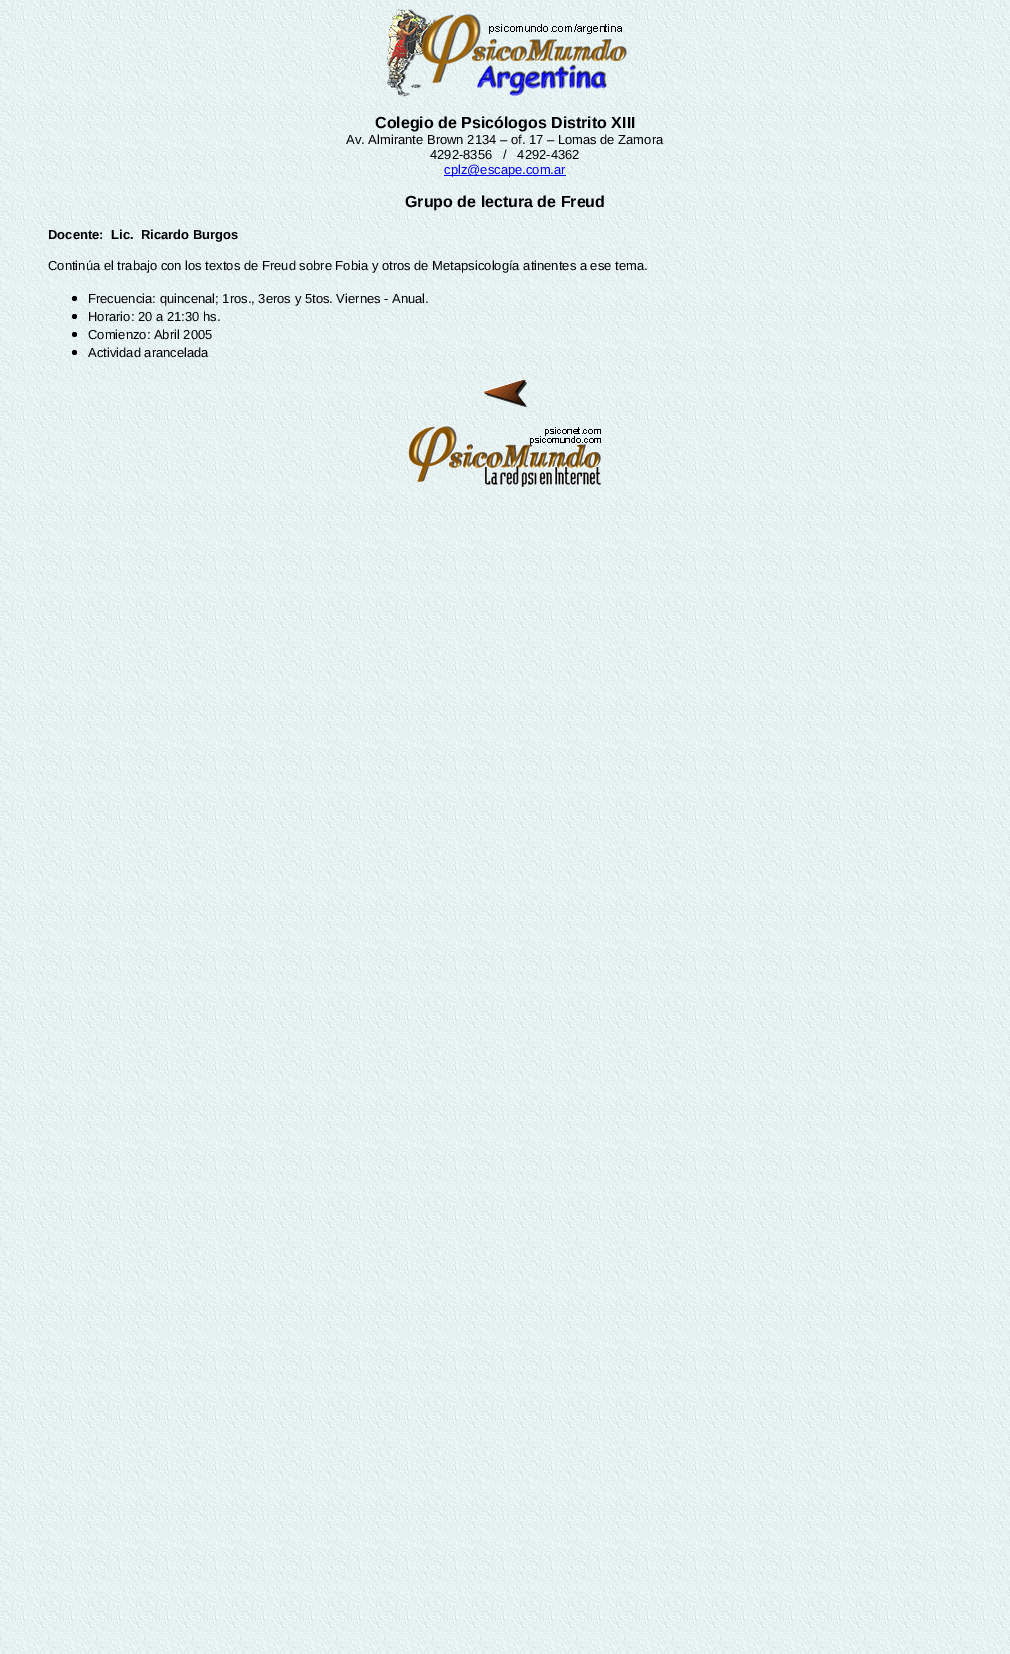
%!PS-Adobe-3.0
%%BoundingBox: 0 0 1010 1654
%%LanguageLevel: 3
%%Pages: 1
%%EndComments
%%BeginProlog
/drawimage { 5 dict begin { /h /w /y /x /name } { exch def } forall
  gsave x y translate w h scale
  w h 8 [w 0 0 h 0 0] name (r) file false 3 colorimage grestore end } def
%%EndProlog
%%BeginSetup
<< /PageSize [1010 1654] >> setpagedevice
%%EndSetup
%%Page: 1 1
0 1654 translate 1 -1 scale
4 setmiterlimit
1 setgray
0 0 1010 1654 rectfill
(images/1.raw) 0 0 1010 1654 drawimage
(images/2.raw) 380 8 250 90 drawimage
0 0 0.933 setrgbcolor
444 175 122 1 rectfill
0 setgray
newpath 74.5 298.5 2.5 0 360 arc closepath fill
newpath 74.5 316.5 2.5 0 360 arc closepath fill
newpath 74.5 334.5 2.5 0 360 arc closepath fill
newpath 74.5 352.5 2.5 0 360 arc closepath fill
(images/3.raw) 483 379 44 29 drawimage
(images/4.raw) 408 426 193 61 drawimage
/LiberationSans-Bold [16 0 0 -16 0 0] selectfont
375 128 moveto (Colegio de Psicólogos Distrito XIII) show
/LiberationSans-Regular [13 0 0 -13 0 0] selectfont
346 144 moveto (Av. Almirante Brown 2134 – of. 17 – Lomas de Zamora) show
430 159 moveto (4292-8356   /   4292-4362) show
0 0 0.933 setrgbcolor
444 174 moveto (cplz@escape.com.ar) show
/LiberationSans-Bold [16 0 0 -16 0 0] selectfont
0 setgray
405 207 moveto (Grupo de lectura de Freud) show
/LiberationSans-Bold [13 0 0 -13 0 0] selectfont
48 239 moveto (Docente:) show
111 239 moveto (Lic.  Ricardo Burgos) show
/LiberationSans-Regular [13 0 0 -13 0 0] selectfont
48 270 moveto (Continúa el trabajo con los textos de Freud sobre Fobia y otros de Metapsicología atinentes a ese tema.) show
88 303 moveto (Frecuencia: quincenal; 1ros., 3eros y 5tos. Viernes - Anual.) show
88 321 moveto (Horario: 20 a 21:30 hs.) show
88 339 moveto (Comienzo: Abril 2005) show
88 357 moveto (Actividad arancelada) show
showpage
%%EOF
